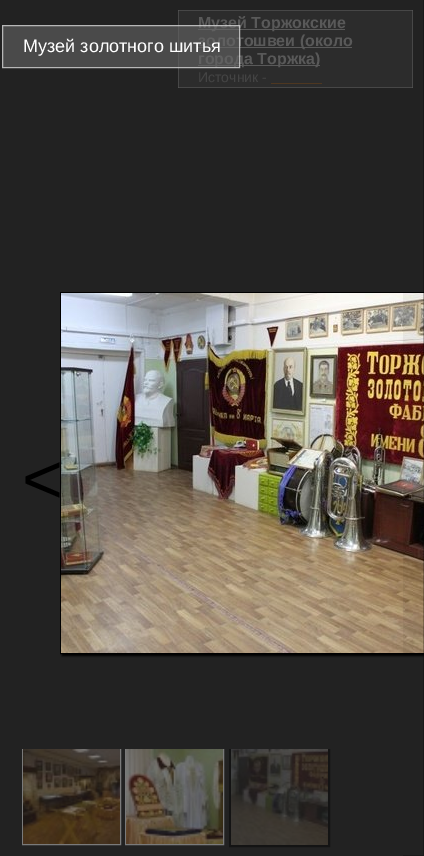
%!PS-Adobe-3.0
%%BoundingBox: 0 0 424 856
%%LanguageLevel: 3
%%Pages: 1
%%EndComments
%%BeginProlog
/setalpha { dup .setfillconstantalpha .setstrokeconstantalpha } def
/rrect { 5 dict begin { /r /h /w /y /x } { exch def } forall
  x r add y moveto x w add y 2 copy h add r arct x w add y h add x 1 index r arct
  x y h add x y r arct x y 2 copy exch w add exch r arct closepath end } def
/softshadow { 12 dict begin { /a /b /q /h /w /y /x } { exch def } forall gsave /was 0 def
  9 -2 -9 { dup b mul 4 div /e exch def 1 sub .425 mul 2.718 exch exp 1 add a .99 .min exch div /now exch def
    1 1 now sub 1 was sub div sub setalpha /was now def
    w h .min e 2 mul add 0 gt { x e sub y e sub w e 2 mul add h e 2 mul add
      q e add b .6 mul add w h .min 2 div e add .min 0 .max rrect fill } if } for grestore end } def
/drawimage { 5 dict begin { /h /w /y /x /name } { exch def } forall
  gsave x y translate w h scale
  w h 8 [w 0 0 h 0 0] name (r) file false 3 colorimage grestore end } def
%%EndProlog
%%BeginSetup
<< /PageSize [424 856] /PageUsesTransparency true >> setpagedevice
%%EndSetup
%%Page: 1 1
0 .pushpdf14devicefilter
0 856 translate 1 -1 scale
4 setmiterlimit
0.133 setgray
0 0 424 856 rectfill
0 setgray
62 294 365 362 0 1 1 softshadow
60.5 292.5 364 361 rectstroke
(images/1.raw) 61 293 363 360 drawimage
gsave
1 749 350 100 rectclip
0.478 setgray
22.5 743.5 98 101 rectstroke
grestore
(images/2.raw) 23 749 97 95 drawimage
gsave
1 749 350 100 rectclip
0.478 setgray
125.5 743.5 98 101 rectstroke
grestore
(images/3.raw) 126 749 97 95 drawimage
gsave
1 749 350 100 rectclip
0.078 setgray
2 setlinewidth
230 744 99 102 rectstroke
grestore
(images/4.raw) 231 749 97 96 drawimage
0.05 setalpha
403 293 21 360 rectfill
0.25 setalpha
423 0 1 856 rectfill
1 setalpha
0.102 setgray
403 855 21 1 rectfill
0.173 setgray
178 11 235 77 rectfill
0.278 setgray
178 10 235 1 rectfill
0.6 setalpha
0.349 setgray
412 10 1 78 rectfill
178 87 235 1 rectfill
178 10 1 78 rectfill
1 setalpha
198 29 147 1 rectfill
198 47 154 1 rectfill
198 65 122 1 rectfill
0.306 0.216 0.125 setrgbcolor
271 83 51 1 rectfill
/LiberationSans-Regular [70 0 0 -70 0 0] selectfont
0 setgray
22 503 moveto (<) show
/LiberationSans-Bold [16 0 0 -16 0 0] selectfont
0.349 setgray
198 28 moveto (Музей Торжокские) show
198 46 moveto (золотошвеи \(около) show
198 64 moveto (города Торжка\)) show
0.6 setalpha
0.392 setgray
2 25 238 43 rectfill
1 setgray
2.5 25.5 237 42 rectstroke
/LiberationSans-Regular [18 0 0 -18 0 0] selectfont
1 setalpha
23 52 moveto (Музей золотного шитья) show
/LiberationSans-Regular [14 0 0 -14 0 0] selectfont
0.267 setgray
198 82 moveto (Источник -) show
.poppdf14devicefilter showpage
%%EOF
